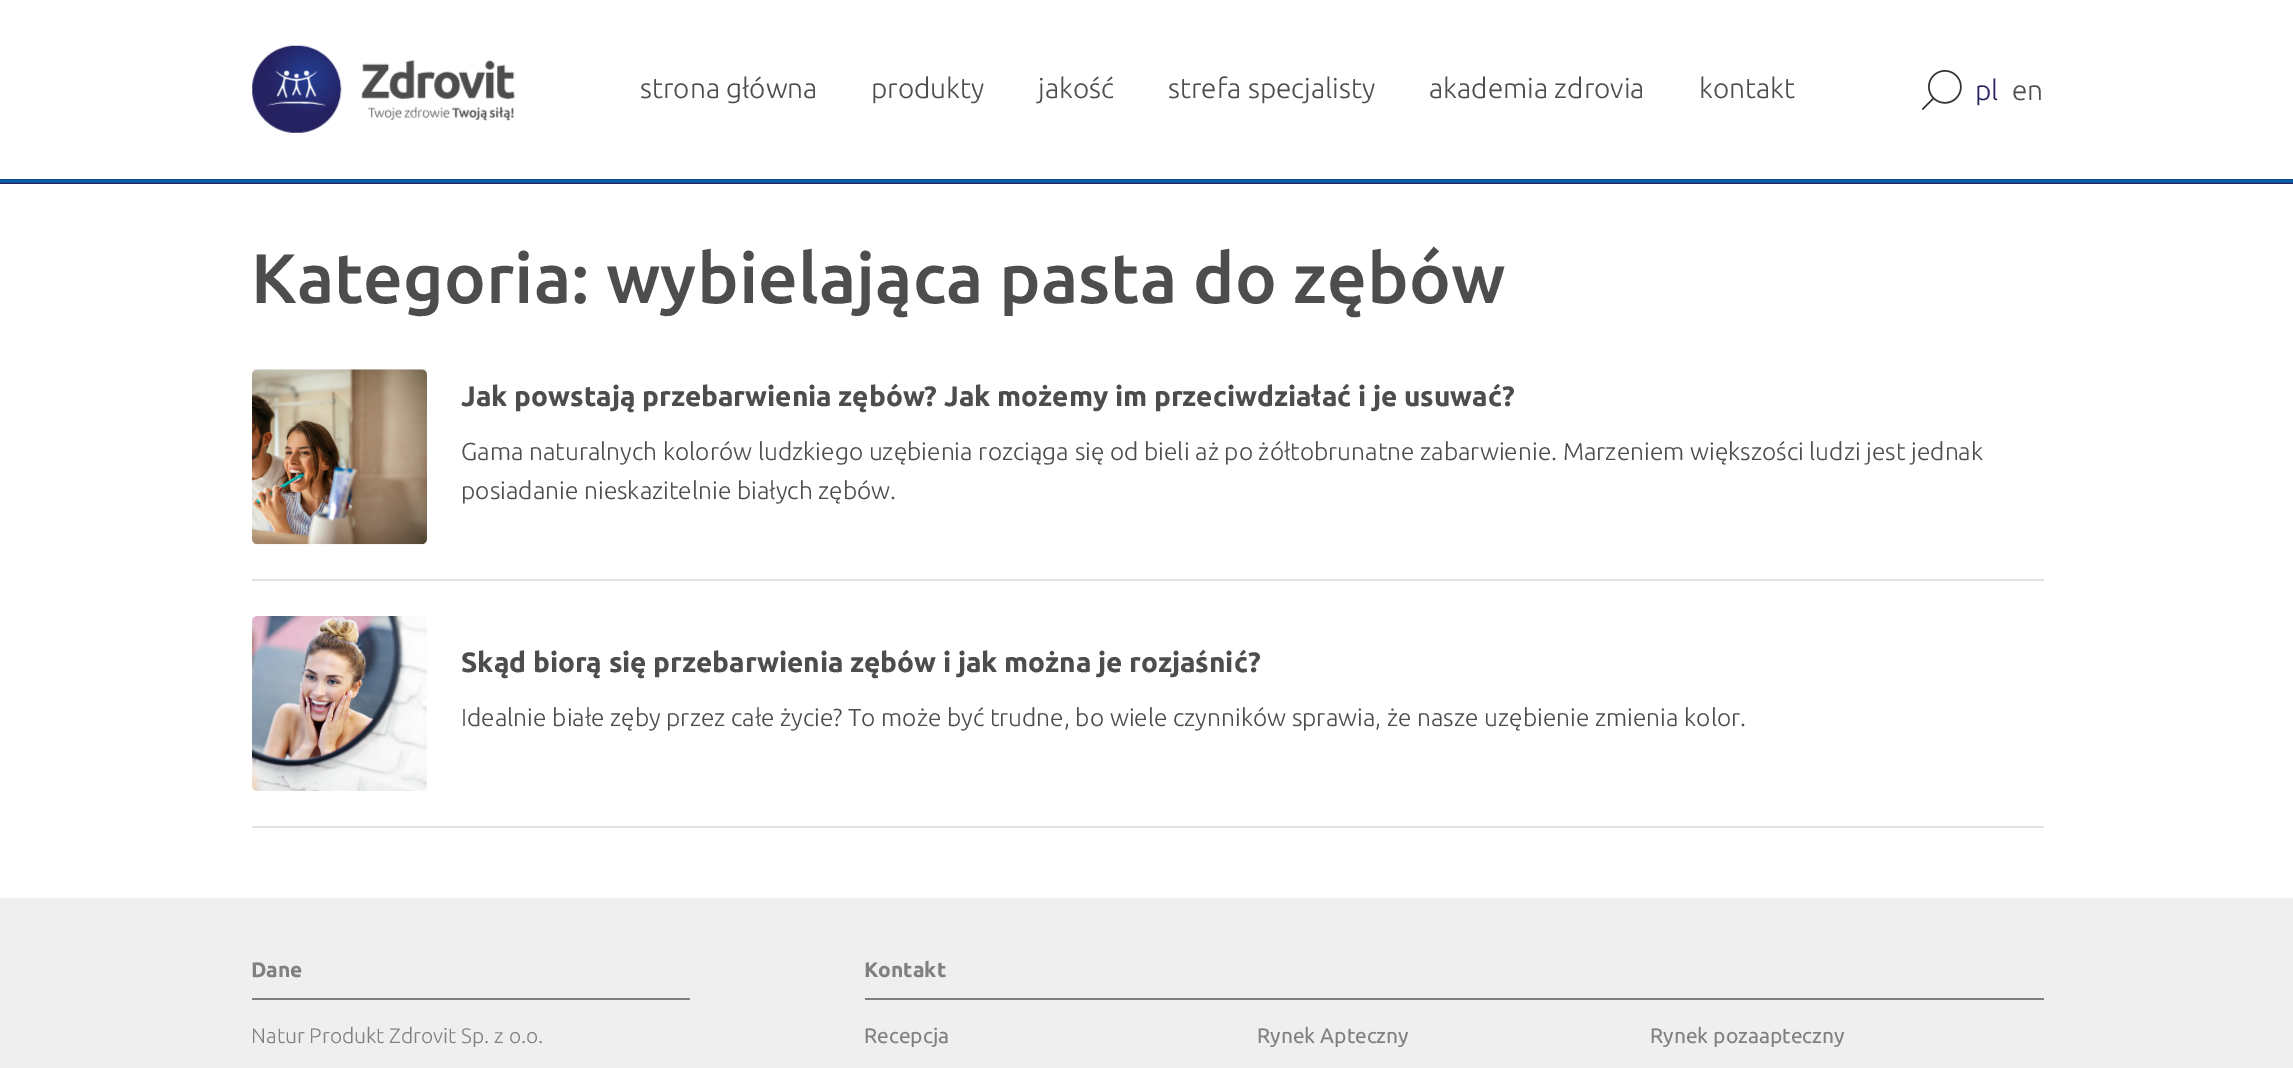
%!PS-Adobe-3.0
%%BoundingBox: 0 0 2293 1068
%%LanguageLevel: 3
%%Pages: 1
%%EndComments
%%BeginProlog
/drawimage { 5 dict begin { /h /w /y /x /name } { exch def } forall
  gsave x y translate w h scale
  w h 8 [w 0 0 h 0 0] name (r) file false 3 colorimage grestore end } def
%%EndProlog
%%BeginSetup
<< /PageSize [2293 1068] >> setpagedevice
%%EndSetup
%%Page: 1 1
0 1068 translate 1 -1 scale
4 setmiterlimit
1 setgray
0 0 2293 1068 rectfill
(images/1.raw) 252 45 263 88 drawimage
(images/2.raw) 1922 70 40 40 drawimage
gsave newpath 0 179 moveto 2293 179 lineto 2293 184 lineto 0 184 lineto closepath clip newpath
<< /ShadingType 2 /ColorSpace /DeviceRGB /Coords [1147 178 1147 184] /Extend [true true] /Function << /FunctionType 3 /Domain [0 1] /Functions [<< /FunctionType 2 /Domain [0 1] /C0 [0.149 0.133 0.38] /C1 [0 0.443 0.729] /N 1 >> << /FunctionType 2 /Domain [0 1] /C0 [0 0.443 0.729] /C1 [0.149 0.133 0.38] /N 1 >>] /Bounds [0.5] /Encode [0 1 0 1] >> >> shfill grestore
0.89 setgray
252 579 1792 2 rectfill
(images/3.raw) 252 369 175 176 drawimage
252 826 1792 2 rectfill
(images/4.raw) 252 616 175 175 drawimage
0.937 setgray
0 898 2293 170 rectfill
0.502 setgray
252 998 438 2 rectfill
865 998 1179 2 rectfill
/Ubuntu-Light [28 0 0 -28 0 0] selectfont
0.302 setgray
640 98 moveto (strona główna) show
871 98 moveto (produkty) show
1038 98 moveto (jakość) show
1168 98 moveto (strefa specjalisty) show
1429 98 moveto (akademia zdrovia) show
1699 98 moveto (kontakt) show
0.149 0.133 0.38 setrgbcolor
1975 100 moveto (pl) show
0.302 setgray
2012 100 moveto (en) show
/Ubuntu-Medium [70 0 0 -70 0 0] selectfont
251 303 moveto (Kategoria: wybielająca pasta do zębów) show
/Ubuntu-Bold [28 0 0 -28 0 0] selectfont
461 406 moveto (Jak powstają przebarwienia zębów? Jak możemy im przeciwdziałać i je usuwać?) show
/Ubuntu-Light [24.5 0 0 -24.5 0 0] selectfont
461 460 moveto (Gama naturalnych kolorów ludzkiego uzębienia rozciąga się od bieli aż po żółtobrunatne zabarwienie. Marzeniem większości ludzi jest jednak) show
461 499 moveto (posiadanie nieskazitelnie białych zębów.) show
/Ubuntu-Bold [28 0 0 -28 0 0] selectfont
461 672 moveto (Skąd biorą się przebarwienia zębów i jak można je rozjaśnić?) show
/Ubuntu-Light [24.5 0 0 -24.5 0 0] selectfont
461 726 moveto (Idealnie białe zęby przez całe życie? To może być trudne, bo wiele czynników sprawia, że nasze uzębienie zmienia kolor.) show
/Ubuntu-Bold [21 0 0 -21 0 0] selectfont
0.502 setgray
251 977 moveto (Dane) show
/Ubuntu-Light [21 0 0 -21 0 0] selectfont
251 1043 moveto (Natur Produkt Zdrovit Sp. z o.o.) show
/Ubuntu-Bold [21 0 0 -21 0 0] selectfont
864 977 moveto (Kontakt) show
/Ubuntu-Regular [21 0 0 -21 0 0] selectfont
864 1043 moveto (Recepcja) show
1257 1043 moveto (Rynek Apteczny) show
1650 1043 moveto (Rynek pozaapteczny) show
showpage
%%EOF
